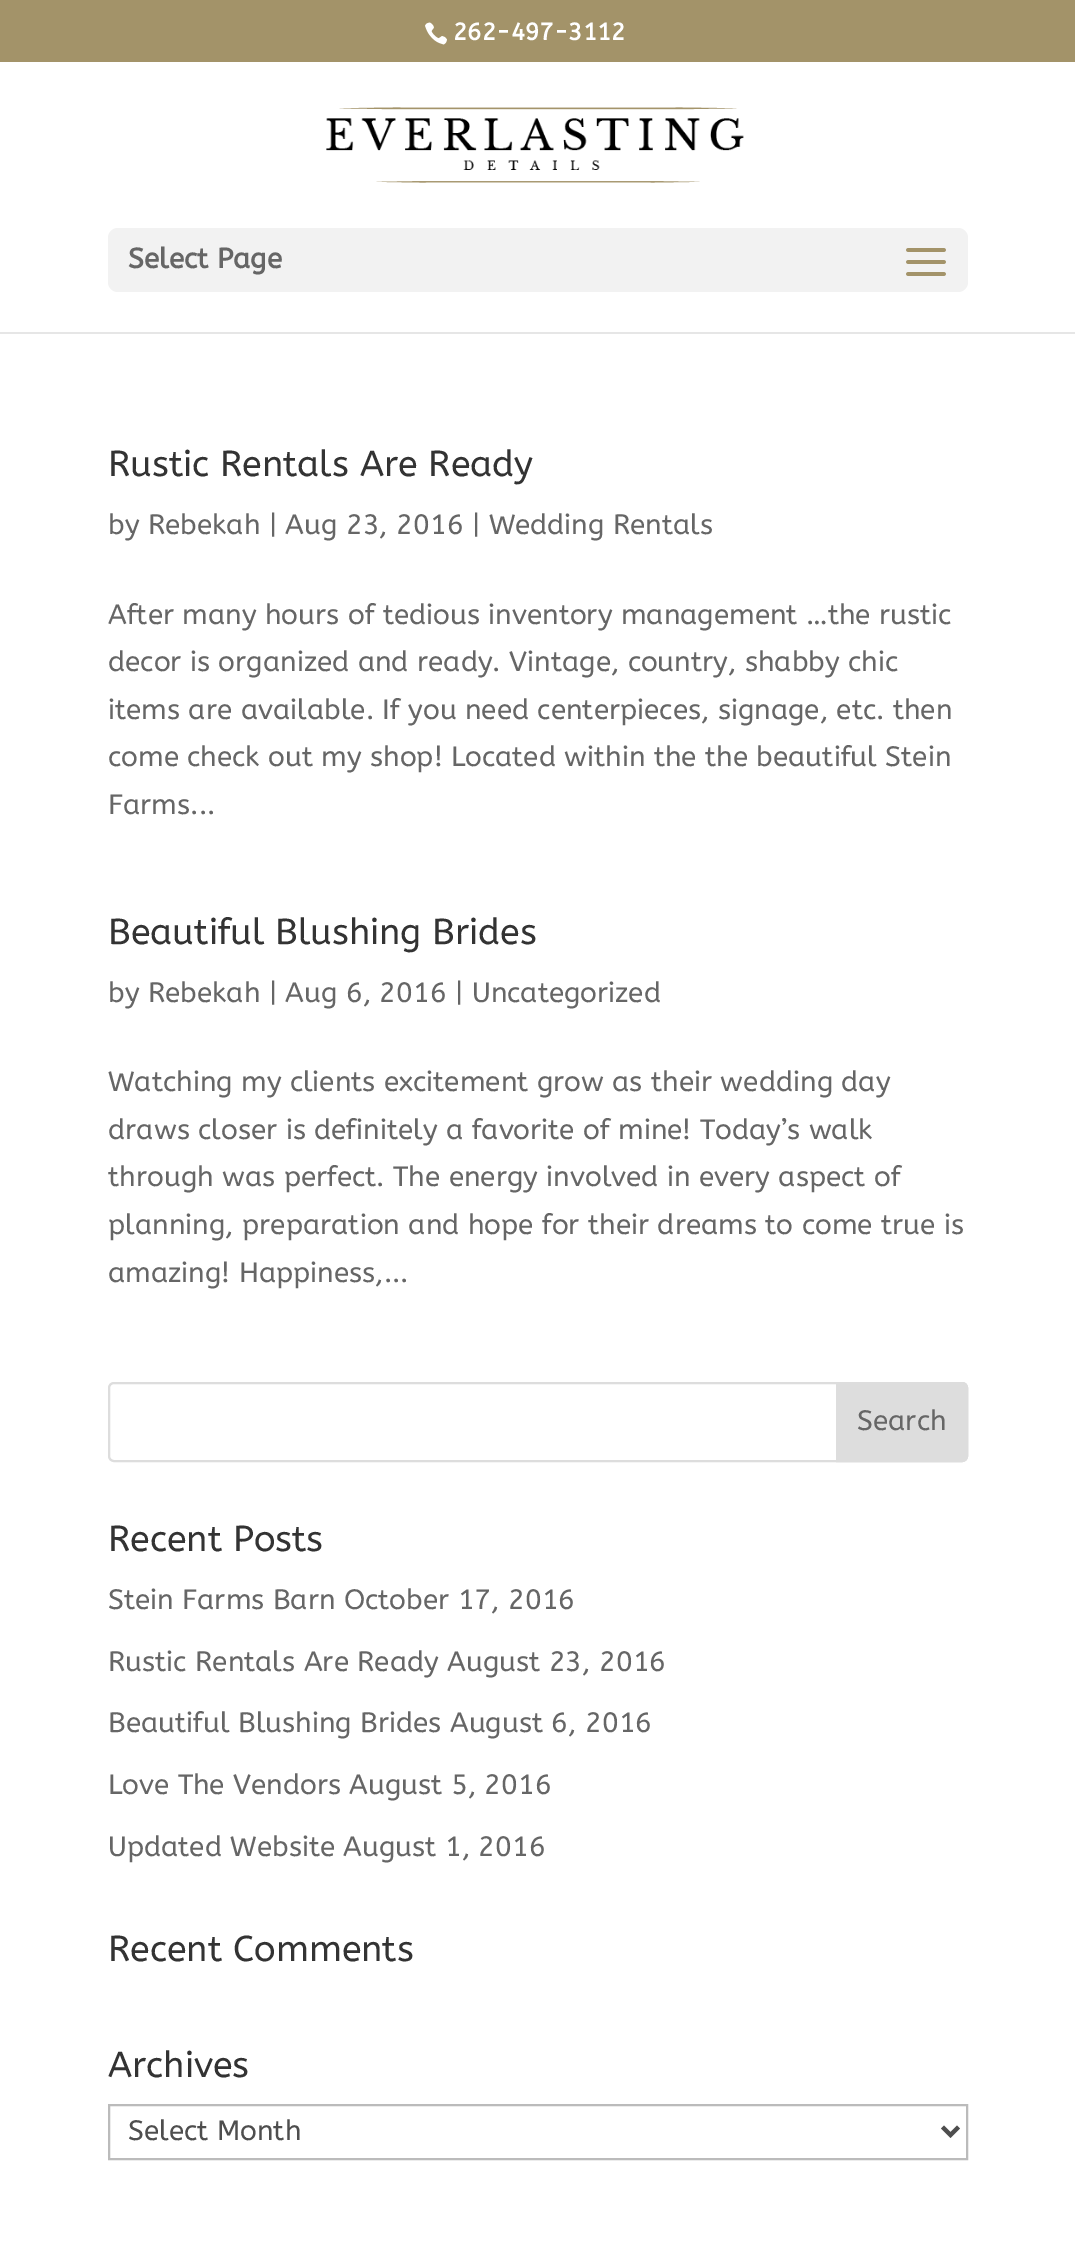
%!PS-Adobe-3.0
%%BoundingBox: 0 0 1075 2250
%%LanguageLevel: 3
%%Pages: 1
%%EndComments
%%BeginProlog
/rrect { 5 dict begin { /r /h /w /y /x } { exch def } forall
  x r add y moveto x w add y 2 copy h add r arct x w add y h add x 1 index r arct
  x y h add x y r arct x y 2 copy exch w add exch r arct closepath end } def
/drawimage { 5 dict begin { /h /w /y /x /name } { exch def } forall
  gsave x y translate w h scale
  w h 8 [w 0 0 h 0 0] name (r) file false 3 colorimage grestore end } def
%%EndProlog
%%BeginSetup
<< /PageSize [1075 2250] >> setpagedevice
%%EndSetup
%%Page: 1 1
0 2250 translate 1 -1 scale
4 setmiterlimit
1 setgray
0 0 1075 2250 rectfill
0.639 0.576 0.412 setrgbcolor
0 0 1075 62 rectfill
(images/1.raw) 425 22 22 23 drawimage
0.902 setgray
0 332 1075 2 rectfill
(images/2.raw) 326 107 418 76 drawimage
0.949 setgray
108 228 860 64 10 rrect fill
(images/3.raw) 906 248 40 28 drawimage
0.867 setgray
2 setlinewidth
109 1383 858 78 5 rrect stroke
newpath 837 1383 moveto 962 1383 lineto 965 1383 967 1385 967 1388 curveto 967 1456 lineto 967 1459 965 1461 962 1461 curveto 837 1461 lineto closepath gsave fill grestore
stroke
0.733 setgray
109 2105 858 54 rectstroke
0.306 setgray
4 setlinewidth
newpath 942.5 2127 moveto 950.5 2135 lineto 958.5 2127 lineto stroke
/ABeeZee-Bold [24 0 0 -24 0 0] selectfont
1 setgray
453 40 moveto (262-497-3112) show
/ABeeZee-Bold [28 0 0 -28 0 0] selectfont
0.4 setgray
128 268 moveto (Select Page) show
/ABeeZee-Regular [36 0 0 -36 0 0] selectfont
0.2 setgray
108 476 moveto (Rustic Rentals Are Ready) show
/ABeeZee-Regular [28 0 0 -28 0 0] selectfont
0.4 setgray
108 534 moveto (by Rebekah | Aug 23, 2016 | Wedding Rentals) show
108 624 moveto (After many hours of tedious inventory management …the rustic) show
108 671 moveto (decor is organized and ready. Vintage, country, shabby chic) show
108 719 moveto (items are available. If you need centerpieces, signage, etc. then) show
108 766 moveto (come check out my shop! Located within the the beautiful Stein) show
108 814 moveto (Farms...) show
/ABeeZee-Regular [36 0 0 -36 0 0] selectfont
0.2 setgray
108 944 moveto (Beautiful Blushing Brides) show
/ABeeZee-Regular [28 0 0 -28 0 0] selectfont
0.4 setgray
108 1002 moveto (by Rebekah | Aug 6, 2016 | Uncategorized) show
108 1091 moveto (Watching my clients excitement grow as their wedding day) show
108 1139 moveto (draws closer is definitely a favorite of mine! Today’s walk) show
108 1186 moveto (through was perfect. The energy involved in every aspect of) show
108 1234 moveto (planning, preparation and hope for their dreams to come true is) show
108 1282 moveto (amazing! Happiness,...) show
857 1430 moveto (Search) show
/ABeeZee-Regular [36 0 0 -36 0 0] selectfont
0.2 setgray
108 1551 moveto (Recent Posts) show
/ABeeZee-Regular [28 0 0 -28 0 0] selectfont
0.4 setgray
108 1609 moveto (Stein Farms Barn October 17, 2016) show
108 1671 moveto (Rustic Rentals Are Ready August 23, 2016) show
108 1732 moveto (Beautiful Blushing Brides August 6, 2016) show
108 1794 moveto (Love The Vendors August 5, 2016) show
108 1856 moveto (Updated Website August 1, 2016) show
/ABeeZee-Regular [36 0 0 -36 0 0] selectfont
0.2 setgray
108 1961 moveto (Recent Comments) show
108 2077 moveto (Archives) show
/ABeeZee-Regular [28 0 0 -28 0 0] selectfont
0.306 setgray
128 2140 moveto (Select Month) show
showpage
%%EOF
